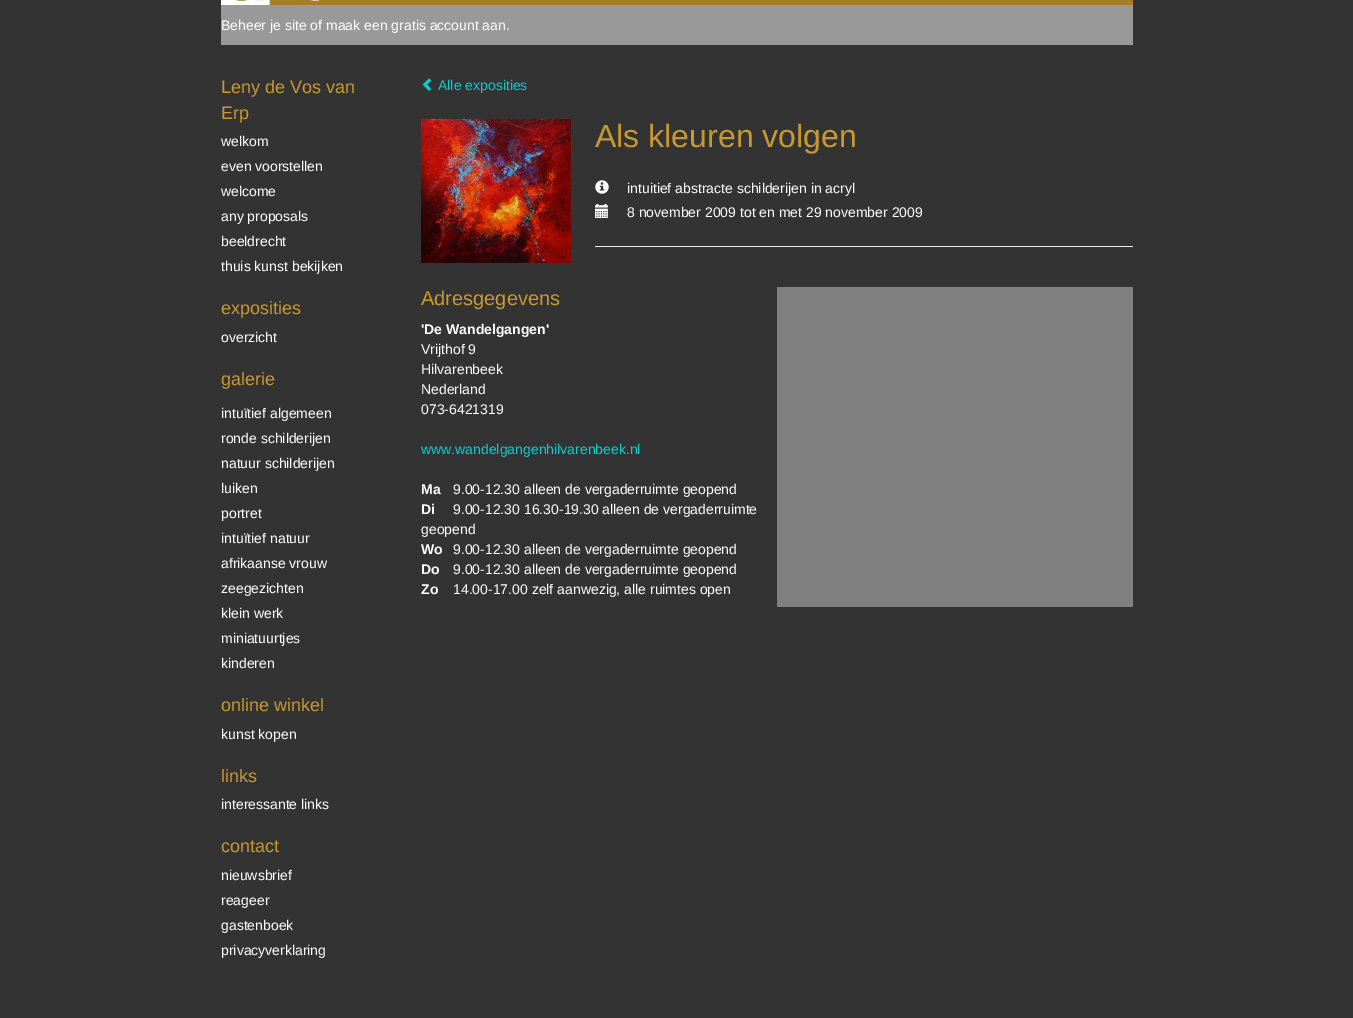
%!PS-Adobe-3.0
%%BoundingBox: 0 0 1353 1018
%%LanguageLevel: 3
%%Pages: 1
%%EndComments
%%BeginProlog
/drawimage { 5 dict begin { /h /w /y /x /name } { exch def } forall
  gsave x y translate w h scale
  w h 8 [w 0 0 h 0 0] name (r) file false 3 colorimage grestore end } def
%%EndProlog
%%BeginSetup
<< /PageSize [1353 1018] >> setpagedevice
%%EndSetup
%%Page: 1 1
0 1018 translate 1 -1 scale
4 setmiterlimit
0.2 setgray
0 0 1353 1018 rectfill
0.643 0.494 0.153 setrgbcolor
235 0 898 5 rectfill
(images/1.raw) 221 0 99 5 drawimage
0.6 setgray
221 5 912 40 rectfill
(images/2.raw) 422 78 10 13 drawimage
(images/3.raw) 421 119 150 144 drawimage
(images/4.raw) 595 180 14 14 drawimage
(images/5.raw) 595 204 13 14 drawimage
0.933 setgray
595 246 538 1 rectfill
0.502 setgray
777 287 356 320 rectfill
/LiberationSans-Regular [14 0 0 -14 0 0] selectfont
1 setgray
221 30 moveto (Beheer je site of maak een gratis account aan.) show
/LiberationSans-Regular [18 0 0 -18 0 0] selectfont
0.784 0.6 0.184 setrgbcolor
221 93 moveto (Leny de Vos van) show
221 119 moveto (Erp) show
/LiberationSans-Regular [14 0 0 -14 0 0] selectfont
1 setgray
221 146 moveto (welkom) show
221 171 moveto (even voorstellen) show
221 196 moveto (welcome) show
221 221 moveto (any proposals) show
221 246 moveto (beeldrecht) show
221 271 moveto (thuis kunst bekijken) show
/LiberationSans-Regular [18 0 0 -18 0 0] selectfont
0.784 0.6 0.184 setrgbcolor
221 314 moveto (exposities) show
/LiberationSans-Regular [14 0 0 -14 0 0] selectfont
1 setgray
221 342 moveto (overzicht) show
/LiberationSans-Regular [18 0 0 -18 0 0] selectfont
0.784 0.6 0.184 setrgbcolor
221 385 moveto (galerie) show
/LiberationSans-Regular [14 0 0 -14 0 0] selectfont
1 setgray
221 418 moveto (intuïtief algemeen) show
221 443 moveto (ronde schilderijen) show
221 468 moveto (natuur schilderijen) show
221 493 moveto (luiken) show
221 518 moveto (portret) show
221 543 moveto (intuïtief natuur) show
221 568 moveto (afrikaanse vrouw) show
221 593 moveto (zeegezichten) show
221 618 moveto (klein werk) show
221 643 moveto (miniatuurtjes) show
221 668 moveto (kinderen) show
/LiberationSans-Regular [18 0 0 -18 0 0] selectfont
0.784 0.6 0.184 setrgbcolor
221 711 moveto (online winkel) show
/LiberationSans-Regular [14 0 0 -14 0 0] selectfont
1 setgray
221 739 moveto (kunst kopen) show
/LiberationSans-Regular [18 0 0 -18 0 0] selectfont
0.784 0.6 0.184 setrgbcolor
221 782 moveto (links) show
/LiberationSans-Regular [14 0 0 -14 0 0] selectfont
1 setgray
221 809 moveto (interessante links) show
/LiberationSans-Regular [18 0 0 -18 0 0] selectfont
0.784 0.6 0.184 setrgbcolor
221 852 moveto (contact) show
/LiberationSans-Regular [14 0 0 -14 0 0] selectfont
1 setgray
221 880 moveto (nieuwsbrief) show
221 905 moveto (reageer) show
221 930 moveto (gastenboek) show
221 955 moveto (privacyverklaring) show
0.047 0.8 0.8 setrgbcolor
438 90 moveto (Alle exposities) show
/LiberationSans-Regular [32 0 0 -32 0 0] selectfont
0.784 0.6 0.184 setrgbcolor
595 147 moveto (Als kleuren volgen) show
/LiberationSans-Regular [14 0 0 -14 0 0] selectfont
1 setgray
627 193 moveto (intuitief abstracte schilderijen in acryl) show
627 217 moveto (8 november 2009 tot en met 29 november 2009) show
/LiberationSans-Regular [20 0 0 -20 0 0] selectfont
0.784 0.6 0.184 setrgbcolor
421 305 moveto (Adresgegevens) show
/LiberationSans-Bold [14 0 0 -14 0 0] selectfont
1 setgray
421 334 moveto ('De Wandelgangen') show
/LiberationSans-Regular [14 0 0 -14 0 0] selectfont
421 354 moveto (Vrijthof 9) show
421 374 moveto (Hilvarenbeek) show
421 394 moveto (Nederland) show
421 414 moveto (073-6421319) show
0.047 0.8 0.8 setrgbcolor
421 454 moveto (www.wandelgangenhilvarenbeek.nl) show
/LiberationSans-Bold [14 0 0 -14 0 0] selectfont
1 setgray
421 494 moveto (Ma) show
/LiberationSans-Regular [14 0 0 -14 0 0] selectfont
453 494 moveto (9.00-12.30 alleen de vergaderruimte geopend) show
/LiberationSans-Bold [14 0 0 -14 0 0] selectfont
421 514 moveto (Di) show
/LiberationSans-Regular [14 0 0 -14 0 0] selectfont
453 514 moveto (9.00-12.30 16.30-19.30 alleen de vergaderruimte) show
421 534 moveto (geopend) show
/LiberationSans-Bold [14 0 0 -14 0 0] selectfont
421 554 moveto (Wo) show
/LiberationSans-Regular [14 0 0 -14 0 0] selectfont
453 554 moveto (9.00-12.30 alleen de vergaderruimte geopend) show
/LiberationSans-Bold [14 0 0 -14 0 0] selectfont
421 574 moveto (Do) show
/LiberationSans-Regular [14 0 0 -14 0 0] selectfont
453 574 moveto (9.00-12.30 alleen de vergaderruimte geopend) show
/LiberationSans-Bold [14 0 0 -14 0 0] selectfont
421 594 moveto (Zo) show
/LiberationSans-Regular [14 0 0 -14 0 0] selectfont
453 594 moveto (14.00-17.00 zelf aanwezig, alle ruimtes open) show
showpage
%%EOF
